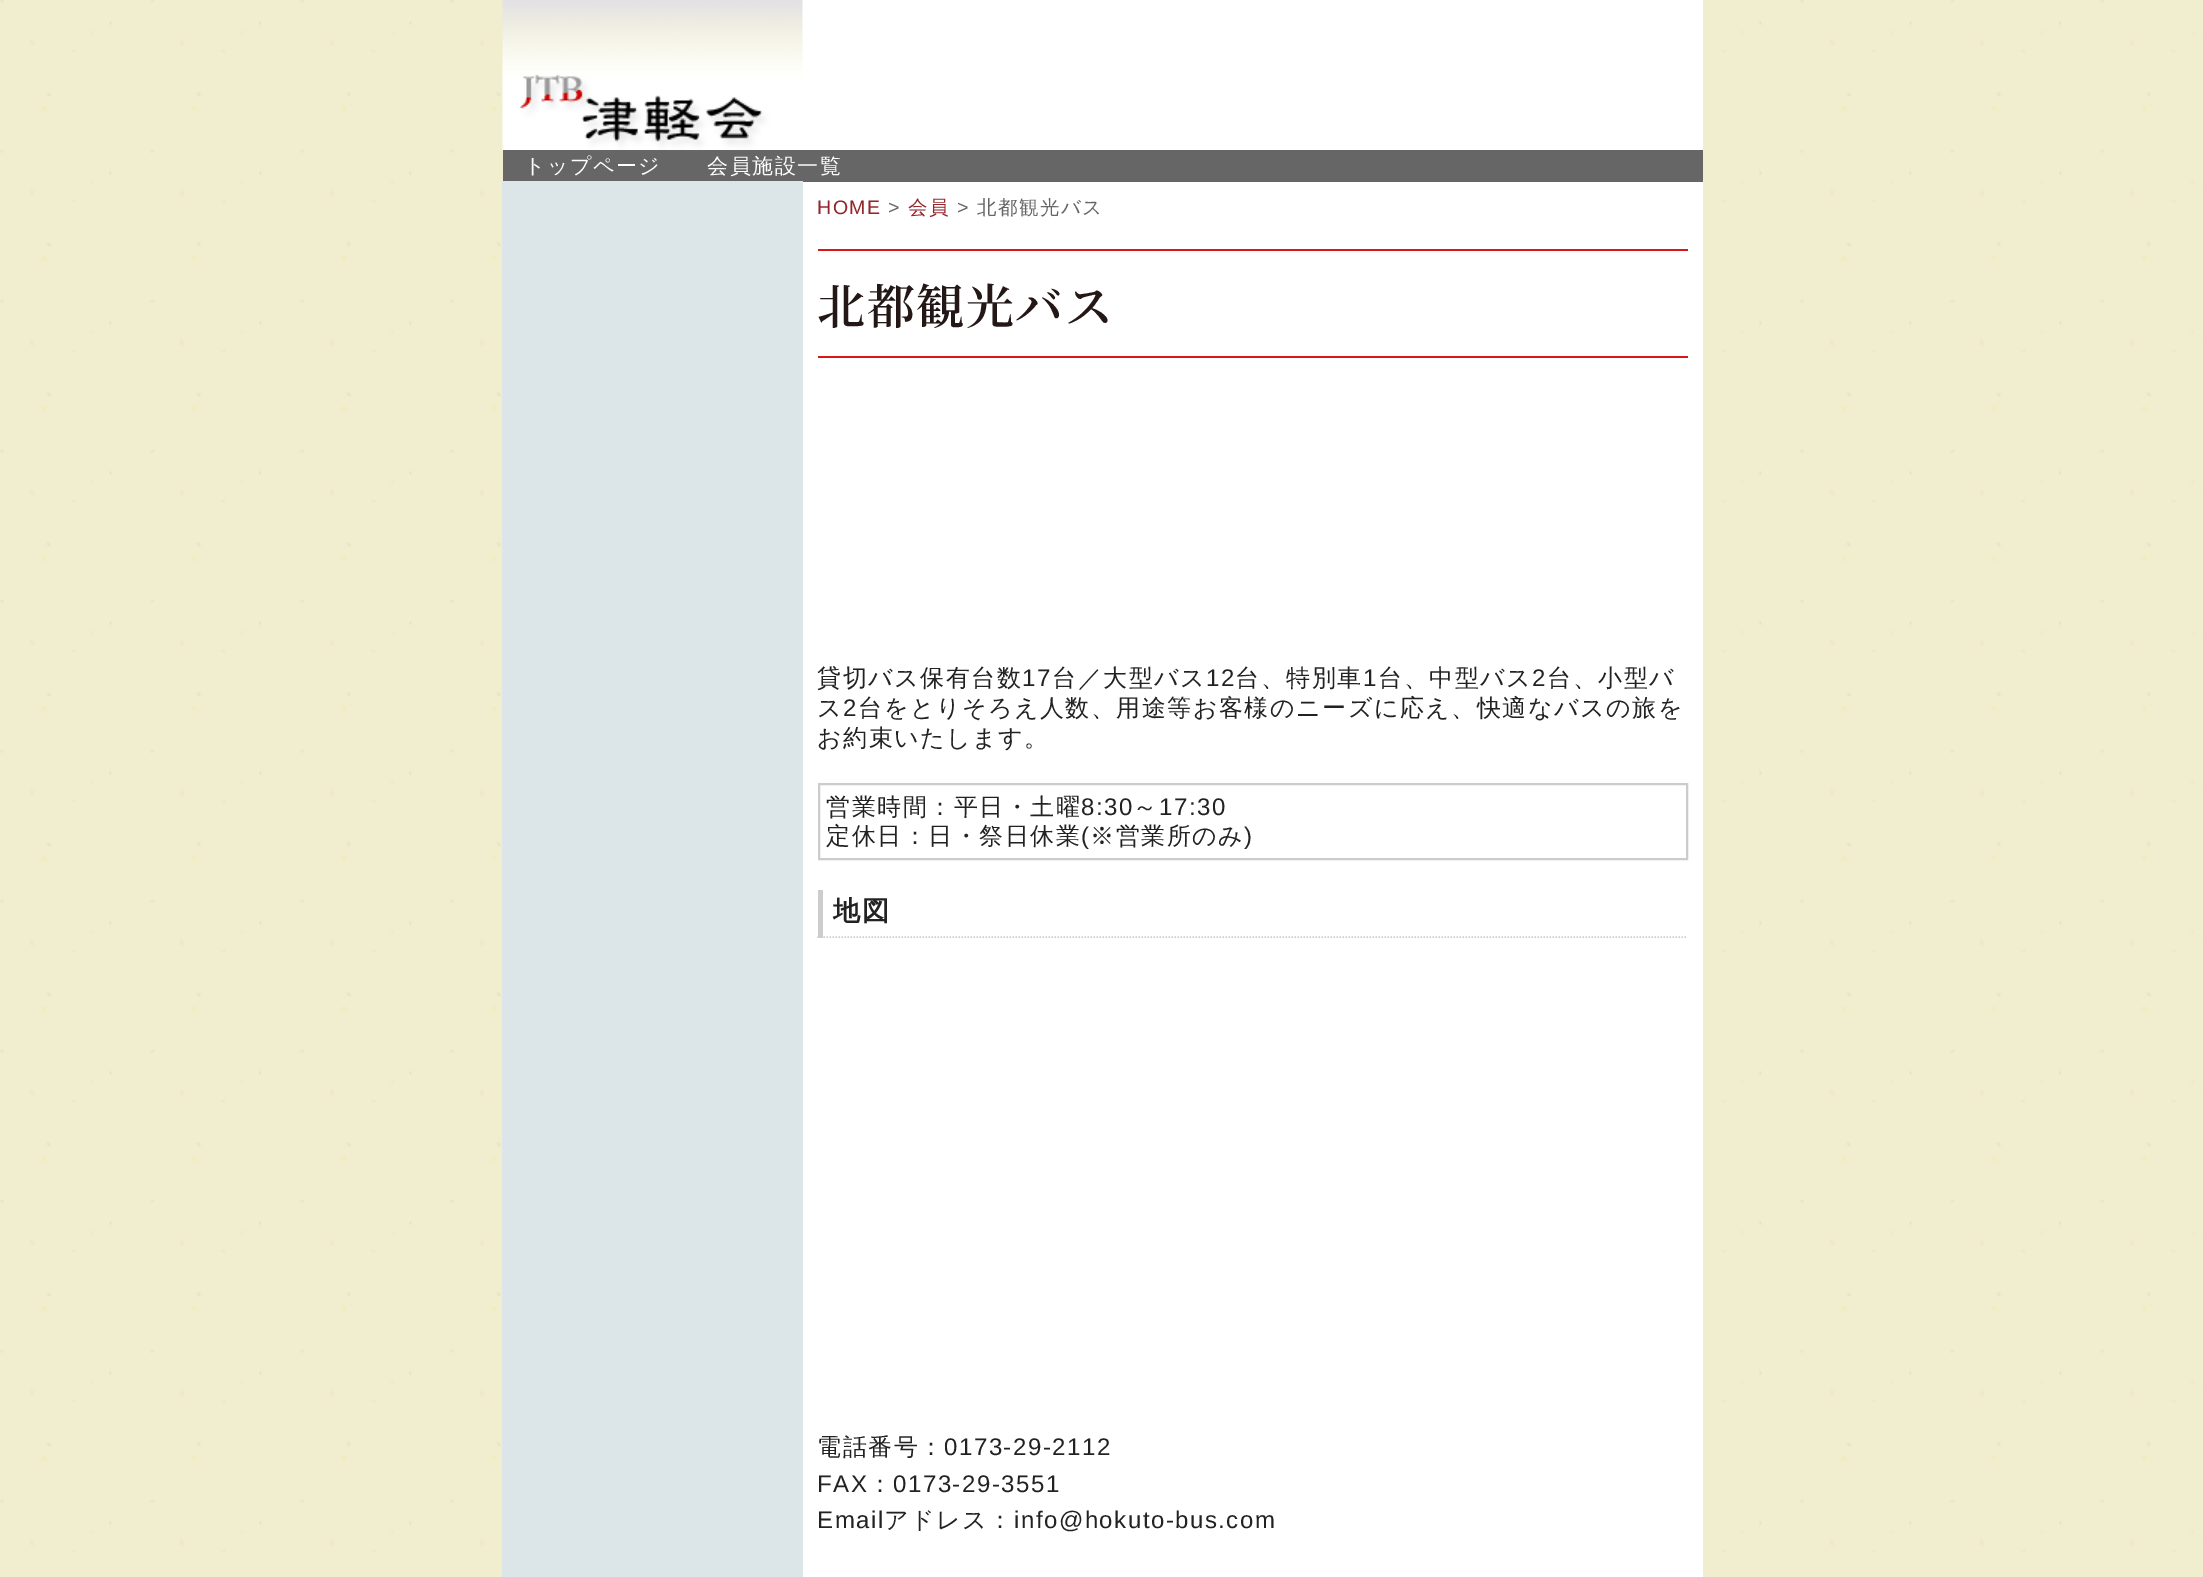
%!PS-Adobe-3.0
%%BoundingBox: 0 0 2203 1577
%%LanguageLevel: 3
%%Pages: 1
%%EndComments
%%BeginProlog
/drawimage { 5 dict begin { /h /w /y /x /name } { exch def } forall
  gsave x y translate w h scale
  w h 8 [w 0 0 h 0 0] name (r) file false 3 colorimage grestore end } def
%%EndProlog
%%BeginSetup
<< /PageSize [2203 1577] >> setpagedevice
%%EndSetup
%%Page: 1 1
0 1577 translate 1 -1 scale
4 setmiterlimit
1 setgray
0 0 2203 1577 rectfill
(images/1.raw) 0 0 2203 1577 drawimage
802 0 901 150 rectfill
(images/2.raw) 502 0 301 150 drawimage
0.4 setgray
503 150 1200 32 rectfill
1 setgray
803 182 900 1395 rectfill
0.863 0.902 0.91 setrgbcolor
502 181 301 1396 rectfill
0.843 0.09 0.094 setrgbcolor
818 249 870 2 rectfill
818 356 870 2 rectfill
0.8 setgray
2 setlinewidth
819 784 868 75 rectstroke
1.5 setlinewidth
[1.5 1.5] 0 setdash
newpath 817.5 937 moveto 1687.5 937 lineto stroke
818 890 5 48 rectfill
/WenQuanYiZenHei-Medium [21 0 0 -21 0 0] selectfont
1 setgray
524 173 moveto 1.5 0 (トップページ) ashow
707 173 moveto 1.5 0 (会員施設一覧) ashow
/LiberationSans-Regular [19.5 0 0 -19.5 0 0] selectfont
0.58 0.145 0.165 setrgbcolor
817 214 moveto 1.5 0 (HOME) ashow
0.4 setgray
888 214 moveto 1.5 0 (>) ashow
/WenQuanYiZenHei-Medium [19.5 0 0 -19.5 0 0] selectfont
0.58 0.145 0.165 setrgbcolor
908 214 moveto 1.5 0 (会員) ashow
/LiberationSans-Regular [19.5 0 0 -19.5 0 0] selectfont
0.4 setgray
957 214 moveto 1.5 0 (>) ashow
/WenQuanYiZenHei-Medium [19.5 0 0 -19.5 0 0] selectfont
977 214 moveto 1.5 0 (北都観光バス) ashow
/NotoSerifJP-ExtraLight [48 0 0 -48 0 0] selectfont
0.137 0.094 0.082 setrgbcolor
817 324 moveto 1.5 0 (北都観光バス) ashow
/WenQuanYiZenHei-Medium [24 0 0 -24 0 0] selectfont
0.133 setgray
817 686 moveto 1.5 0 (貸切バス保有台数) ashow
/LiberationSans-Regular [24 0 0 -24 0 0] selectfont
1022 686 moveto 1.5 0 (17) ashow
/WenQuanYiZenHei-Medium [24 0 0 -24 0 0] selectfont
1052 686 moveto 1.5 0 (台／大型バス) ashow
/LiberationSans-Regular [24 0 0 -24 0 0] selectfont
1206 686 moveto 1.5 0 (12) ashow
/WenQuanYiZenHei-Medium [24 0 0 -24 0 0] selectfont
1235 686 moveto 1.5 0 (台、特別車) ashow
/LiberationSans-Regular [24 0 0 -24 0 0] selectfont
1363 686 moveto 1.5 0 (1) ashow
/WenQuanYiZenHei-Medium [24 0 0 -24 0 0] selectfont
1378 686 moveto 1.5 0 (台、中型バス) ashow
/LiberationSans-Regular [24 0 0 -24 0 0] selectfont
1532 686 moveto 1.5 0 (2) ashow
/WenQuanYiZenHei-Medium [24 0 0 -24 0 0] selectfont
1547 686 moveto 1.5 0 (台、小型バ) ashow
817 716 moveto 1.5 0 (ス) ashow
/LiberationSans-Regular [24 0 0 -24 0 0] selectfont
843 716 moveto 1.5 0 (2) ashow
/WenQuanYiZenHei-Medium [24 0 0 -24 0 0] selectfont
858 716 moveto 1.5 0 (台をとりそろえ人数、用途等お客様のニーズに応え、快適なバスの旅を) ashow
817 746 moveto 1.5 0 (お約束いたします。) ashow
826 815 moveto 1.5 0 (営業時間：平日・土曜) ashow
/LiberationSans-Regular [24 0 0 -24 0 0] selectfont
1081 815 moveto 1.5 0 (8:30) ashow
/WenQuanYiZenHei-Medium [24 0 0 -24 0 0] selectfont
1133 815 moveto 1.5 0 (～) ashow
/LiberationSans-Regular [24 0 0 -24 0 0] selectfont
1159 815 moveto 1.5 0 (17:30) ashow
/WenQuanYiZenHei-Medium [24 0 0 -24 0 0] selectfont
826 844 moveto 1.5 0 (定休日：日・祭日休業) ashow
/LiberationSans-Regular [24 0 0 -24 0 0] selectfont
1081 844 moveto 1.5 0 (\() ashow
/WenQuanYiZenHei-Medium [24 0 0 -24 0 0] selectfont
1090 844 moveto 1.5 0 (※営業所のみ) ashow
/LiberationSans-Regular [24 0 0 -24 0 0] selectfont
1244 844 moveto 1.5 0 (\)) ashow
/WenQuanYiZenHei-Bold [27 0 0 -27 0 0] selectfont
833 920 moveto 1.5 0 (地図) ashow
/WenQuanYiZenHei-Medium [24 0 0 -24 0 0] selectfont
817 1455 moveto 1.5 0 (電話番号：) ashow
/LiberationSans-Regular [24 0 0 -24 0 0] selectfont
944 1455 moveto 1.5 0 (0173-29-2112) ashow
817 1492 moveto 1.5 0 (FAX) ashow
/WenQuanYiZenHei-Medium [24 0 0 -24 0 0] selectfont
868 1492 moveto 1.5 0 (：) ashow
/LiberationSans-Regular [24 0 0 -24 0 0] selectfont
893 1492 moveto 1.5 0 (0173-29-3551) ashow
817 1528 moveto 1.5 0 (Email) ashow
/WenQuanYiZenHei-Medium [24 0 0 -24 0 0] selectfont
884 1528 moveto 1.5 0 (アドレス：) ashow
/LiberationSans-Regular [24 0 0 -24 0 0] selectfont
1014 1528 moveto 1.5 0 (info@hokuto-bus.com) ashow
showpage
%%EOF
